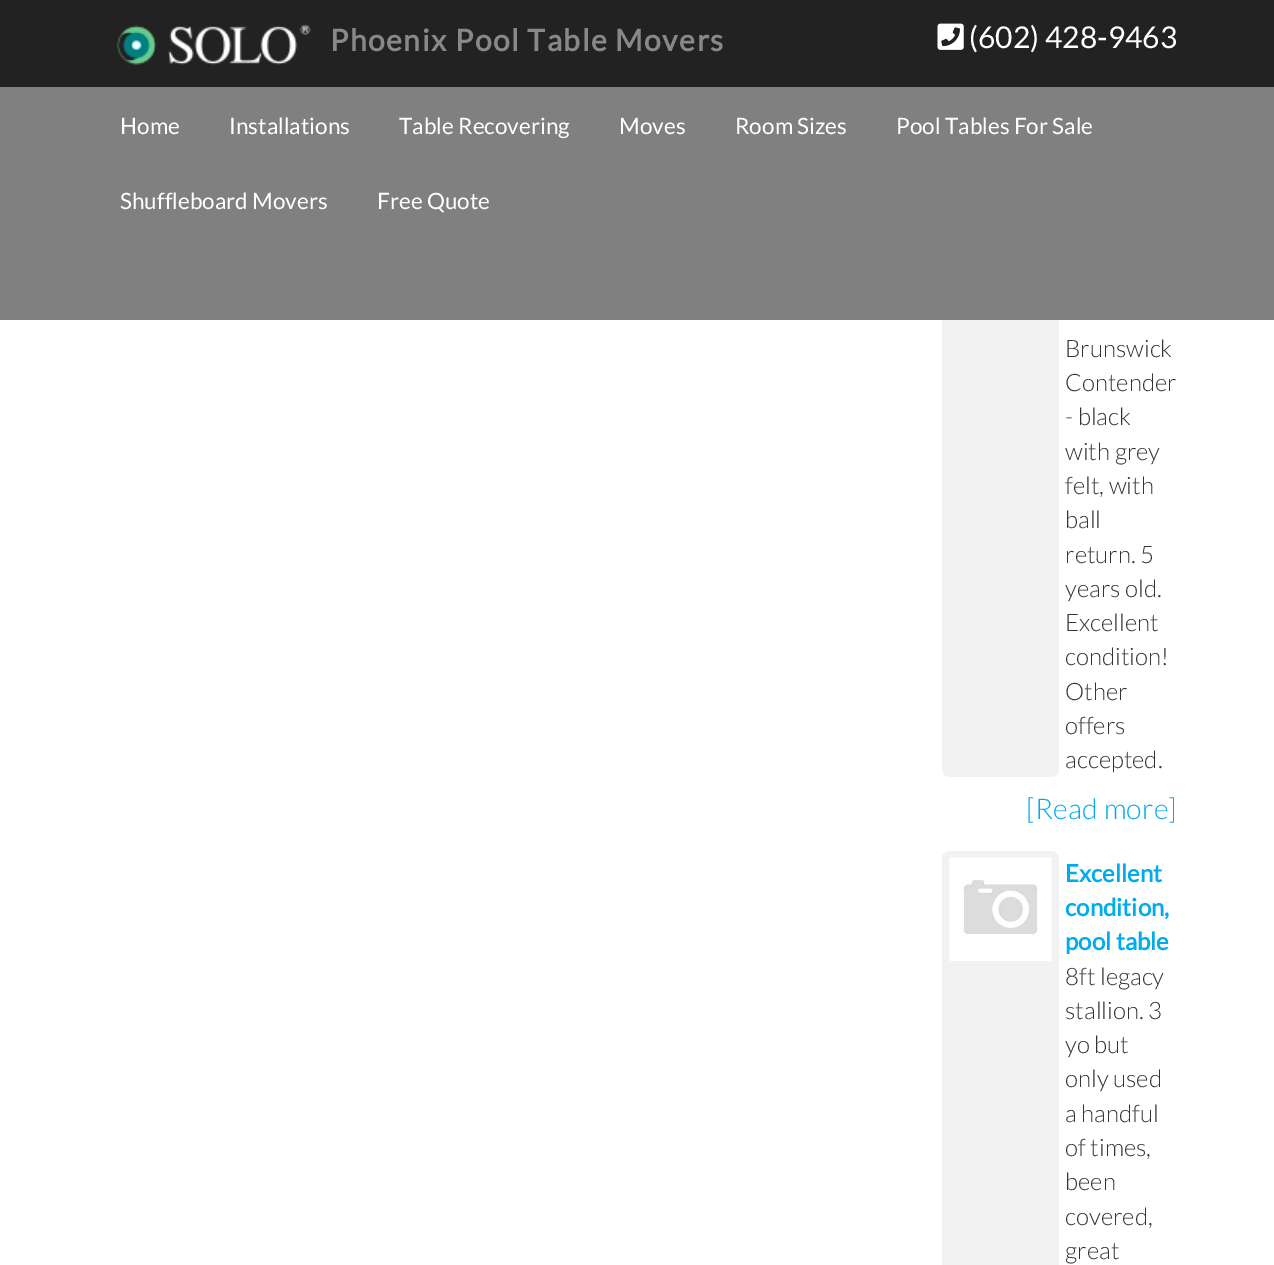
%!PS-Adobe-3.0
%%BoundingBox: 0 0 1274 1265
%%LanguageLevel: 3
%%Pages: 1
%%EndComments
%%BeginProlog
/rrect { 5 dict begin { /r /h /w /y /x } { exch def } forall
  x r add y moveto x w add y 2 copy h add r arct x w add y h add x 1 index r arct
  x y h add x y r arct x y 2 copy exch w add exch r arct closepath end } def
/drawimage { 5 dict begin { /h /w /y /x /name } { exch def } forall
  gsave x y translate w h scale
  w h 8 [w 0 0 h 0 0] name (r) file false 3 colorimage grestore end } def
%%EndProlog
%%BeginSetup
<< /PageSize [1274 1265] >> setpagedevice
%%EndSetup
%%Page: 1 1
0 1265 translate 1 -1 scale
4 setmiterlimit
1 setgray
0 0 1274 1265 rectfill
0.133 setgray
0 0 1274 87 rectfill
(images/1.raw) 116 24 195 41 drawimage
(images/2.raw) 937 23 27 27 drawimage
0.949 setgray
942 120 117 657 8 rrect fill
0.502 setgray
0 87 1274 233 rectfill
0.949 setgray
942 851 117 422 8 rrect fill
(images/3.raw) 949 857 103 104 drawimage
/Lato-Bold [30 0 0 -30 0 0] selectfont
0.533 setgray
330 51 moveto 1.5 0 (Phoenix Pool Table Movers) ashow
/Lato-Regular [30 0 0 -30 0 0] selectfont
1 setgray
969 48 moveto (\(602\) 428-9463) show
/Lato-Regular [22.5 0 0 -22.5 0 0] selectfont
120 134 moveto (Home) show
229 134 moveto (Installations) show
399 134 moveto (Table Recovering) show
619 134 moveto (Moves) show
735 134 moveto (Room Sizes) show
896 134 moveto (Pool Tables For Sale) show
120 209 moveto (Shuffleboard Movers) show
377 209 moveto (Free Quote) show
/Lato-Light [24 0 0 -24 0 0] selectfont
0.2 setgray
1065 357 moveto (Brunswick) show
1065 391 moveto (Contender) show
1065 425 moveto (- black) show
1065 460 moveto (with grey) show
1065 494 moveto (felt, with) show
1065 528 moveto (ball) show
1065 563 moveto (return. 5) show
1065 597 moveto (years old.) show
1065 631 moveto (Excellent) show
1065 665 moveto (condition!) show
1065 700 moveto (Other) show
1065 734 moveto (offers) show
1065 768 moveto (accepted.) show
/Lato-Light [28.5 0 0 -28.5 0 0] selectfont
0 0.675 0.929 setrgbcolor
1026 819 moveto 0.25 0 ([Read more]) ashow
/Lato-Bold [24 0 0 -24 0 0] selectfont
1065 882 moveto (Excellent) show
1065 916 moveto (condition,) show
1065 950 moveto (pool table) show
/Lato-Light [24 0 0 -24 0 0] selectfont
0.2 setgray
1065 985 moveto (8ft legacy) show
1065 1019 moveto (stallion. 3) show
1065 1053 moveto (yo but) show
1065 1087 moveto (only used) show
1065 1122 moveto (a handful) show
1065 1156 moveto (of times,) show
1065 1190 moveto (been) show
1065 1225 moveto (covered,) show
1065 1259 moveto (great) show
showpage
%%EOF
